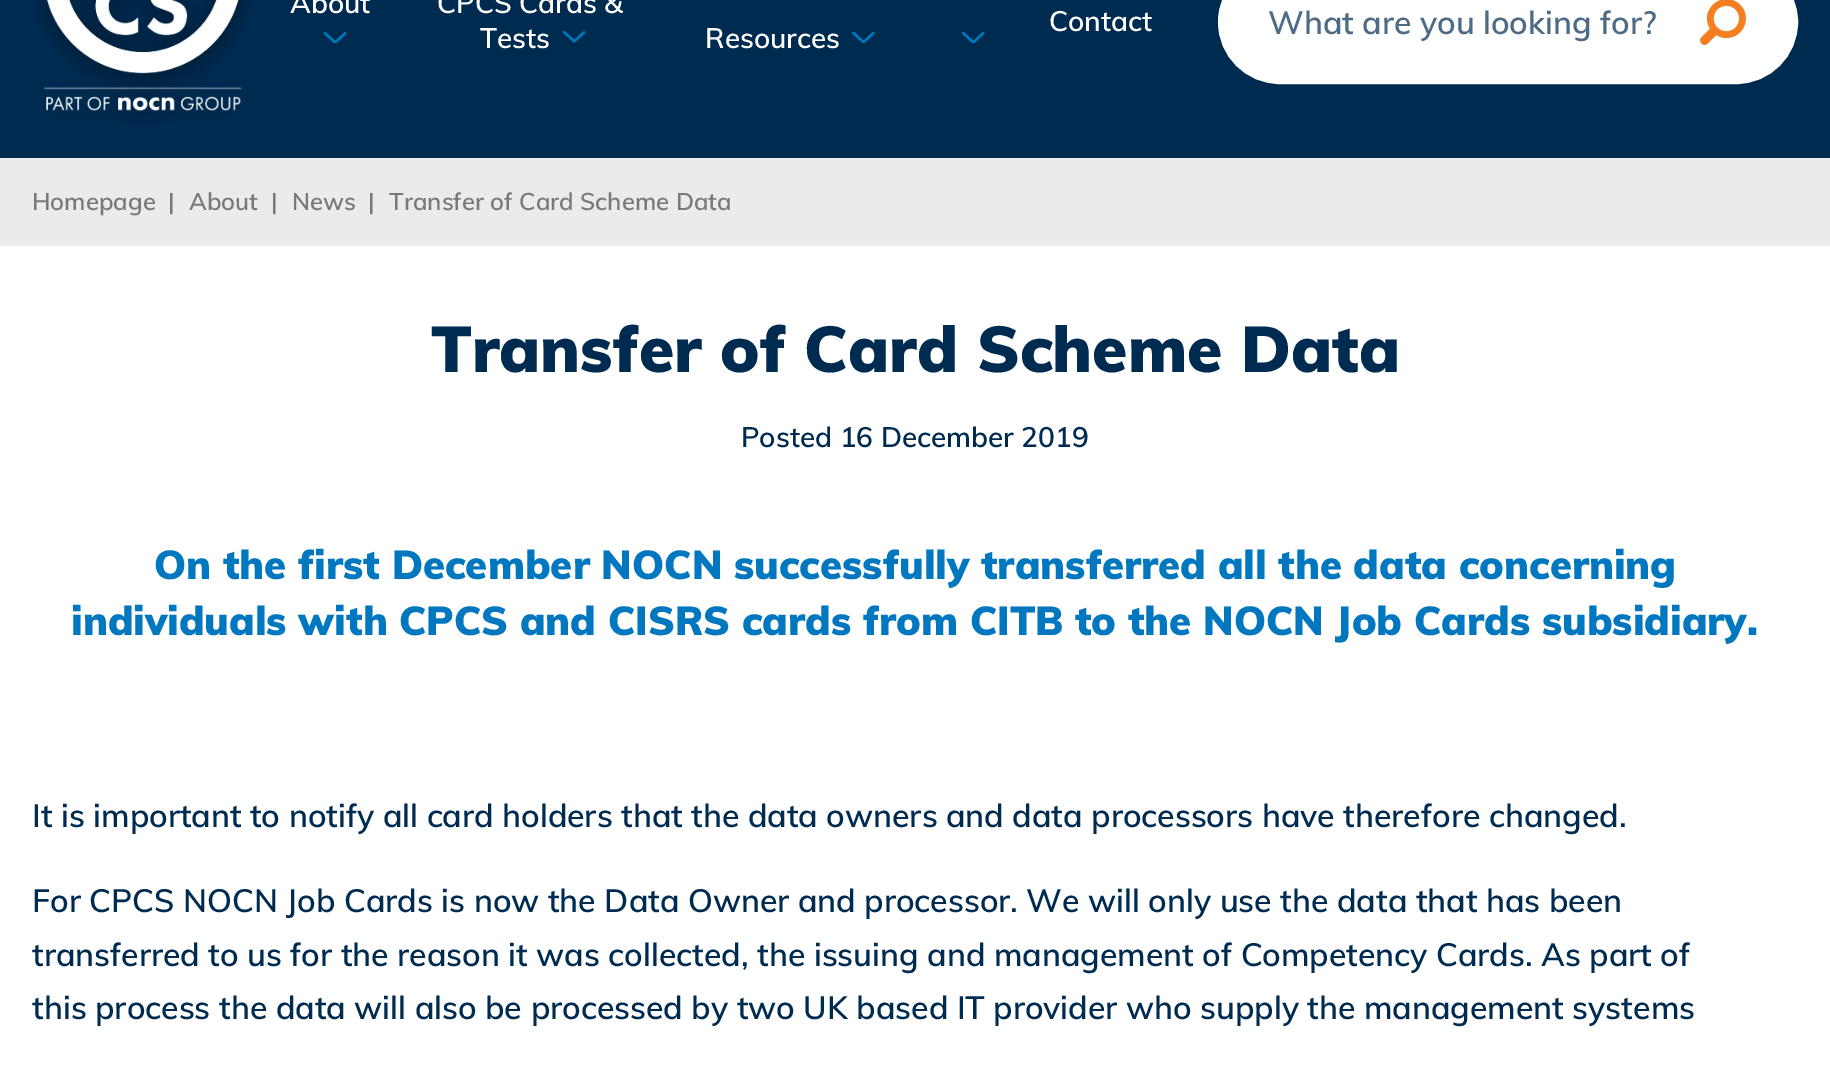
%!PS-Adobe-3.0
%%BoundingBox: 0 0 1830 1065
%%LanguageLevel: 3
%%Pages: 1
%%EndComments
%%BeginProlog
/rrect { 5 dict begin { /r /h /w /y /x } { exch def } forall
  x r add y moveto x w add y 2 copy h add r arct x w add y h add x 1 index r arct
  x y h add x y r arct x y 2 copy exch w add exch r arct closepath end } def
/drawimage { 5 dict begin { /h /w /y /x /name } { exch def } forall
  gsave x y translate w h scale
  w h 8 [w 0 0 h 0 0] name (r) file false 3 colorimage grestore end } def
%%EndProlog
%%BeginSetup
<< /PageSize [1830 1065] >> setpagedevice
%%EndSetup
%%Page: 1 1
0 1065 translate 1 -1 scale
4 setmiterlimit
1 setgray
0 0 1830 1065 rectfill
0 0.169 0.318 setrgbcolor
0 0 1830 158 rectfill
(images/1.raw) 33 0 220 124 drawimage
(images/2.raw) 323 32 24 11 drawimage
(images/3.raw) 563 31 23 12 drawimage
(images/4.raw) 852 31 23 12 drawimage
(images/5.raw) 962 31 23 12 drawimage
1 setgray
1219 -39 578 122 61 rrect gsave fill grestore
2 setlinewidth
stroke
(images/6.raw) 1700 0 46 45 drawimage
0.922 setgray
0 158 1830 88 rectfill
/Muli-SemiBold [28 0 0 -28 0 0] selectfont
1 setgray
290 13 moveto (About) show
437 13 moveto (CPCS Cards &) show
480 48 moveto (Tests) show
1049 31 moveto (Contact) show
705 48 moveto (Resources) show
/Muli-SemiBold [32 0 0 -32 0 0] selectfont
0.302 0.42 0.522 setrgbcolor
1268 34 moveto (What are you looking for?) show
/Muli-SemiBold [24 0 0 -24 0 0] selectfont
0.475 setgray
32 210 moveto (Homepage) show
168 210 moveto (|) show
189 210 moveto (About) show
271 210 moveto (|) show
292 210 moveto (News) show
368 210 moveto (|) show
389 210 moveto (Transfer of Card Scheme Data) show
/Muli-Black [64 0 0 -64 0 0] selectfont
0 0.169 0.318 setrgbcolor
431 372 moveto (Transfer of Card Scheme Data) show
/Muli-SemiBold [28 0 0 -28 0 0] selectfont
741 447 moveto (Posted 16 December 2019) show
/Muli-Black [40 0 0 -40 0 0] selectfont
0 0.467 0.745 setrgbcolor
154 579 moveto (On the first December NOCN successfully transferred all the data concerning) show
71 635 moveto (individuals with CPCS and CISRS cards from CITB to the NOCN Job Cards subsidiary.) show
/Muli-SemiBold [32 0 0 -32 0 0] selectfont
0 0.169 0.318 setrgbcolor
32 827 moveto (It is important to notify all card holders that the data owners and data processors have therefore changed.) show
32 912 moveto (For CPCS NOCN Job Cards is now the Data Owner and processor. We will only use the data that has been) show
32 966 moveto (transferred to us for the reason it was collected, the issuing and management of Competency Cards. As part of) show
32 1019 moveto (this process the data will also be processed by two UK based IT provider who supply the management systems) show
showpage
%%EOF
